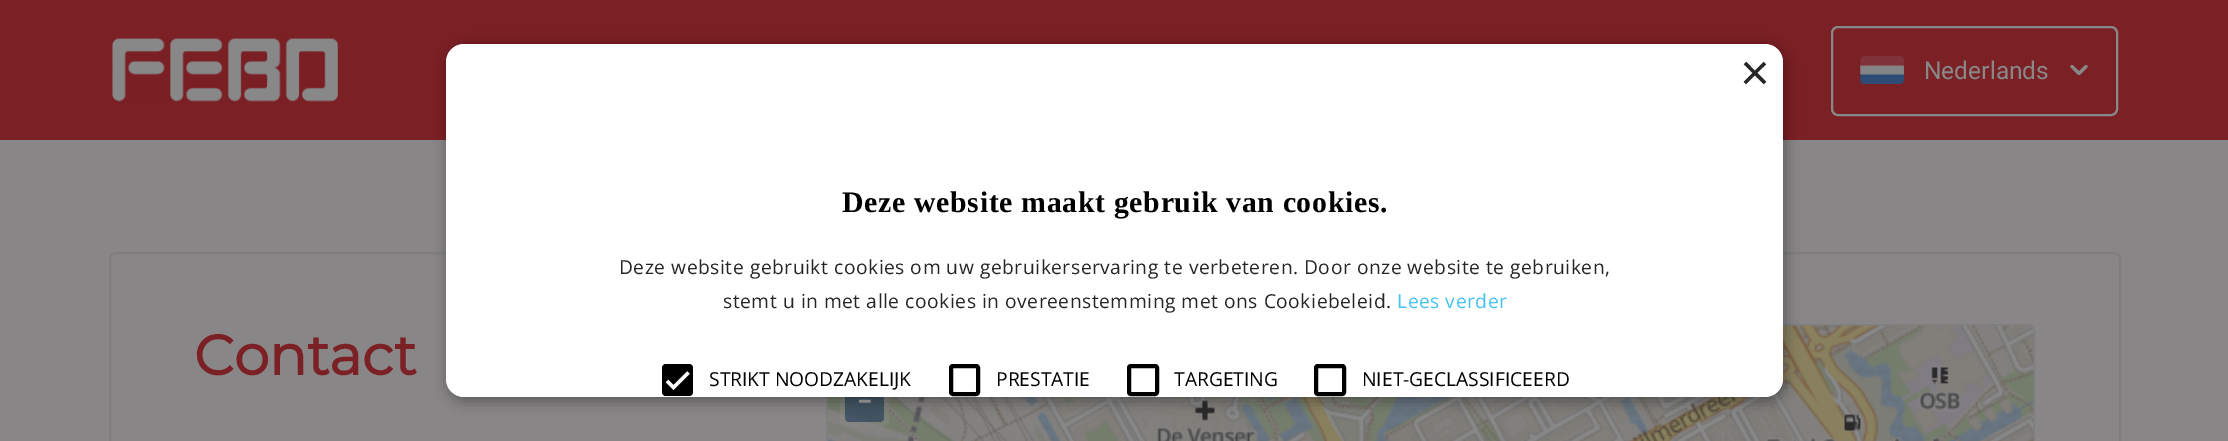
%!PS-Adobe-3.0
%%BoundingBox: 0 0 2228 441
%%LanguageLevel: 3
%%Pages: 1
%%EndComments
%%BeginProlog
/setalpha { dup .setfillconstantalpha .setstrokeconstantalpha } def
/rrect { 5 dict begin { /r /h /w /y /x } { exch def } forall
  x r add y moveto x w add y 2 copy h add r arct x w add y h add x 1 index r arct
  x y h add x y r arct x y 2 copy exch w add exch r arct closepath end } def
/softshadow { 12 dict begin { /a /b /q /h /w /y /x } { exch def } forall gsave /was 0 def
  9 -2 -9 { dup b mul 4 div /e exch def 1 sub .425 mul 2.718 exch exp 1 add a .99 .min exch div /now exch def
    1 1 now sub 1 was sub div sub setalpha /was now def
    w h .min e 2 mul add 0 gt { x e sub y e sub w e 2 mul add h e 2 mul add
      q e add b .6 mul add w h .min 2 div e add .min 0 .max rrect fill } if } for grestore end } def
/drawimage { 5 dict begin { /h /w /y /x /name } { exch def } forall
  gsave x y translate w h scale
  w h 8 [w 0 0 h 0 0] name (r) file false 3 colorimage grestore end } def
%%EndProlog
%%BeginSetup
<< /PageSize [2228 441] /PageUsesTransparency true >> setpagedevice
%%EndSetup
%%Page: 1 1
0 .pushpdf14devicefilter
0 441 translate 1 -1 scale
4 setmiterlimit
0.533 0.525 0.525 setrgbcolor
0 0 2228 441 rectfill
0.1 setalpha
0.169 setgray
2 setlinewidth
110 253 2010 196 6 rrect stroke
1 setalpha
0.498 setgray
827 325 1207 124 6 rrect stroke
(images/1.raw) 828 325 1206 116 drawimage
0.4 setalpha
0.533 setgray
840 338 49 89 7 rrect fill
0.5 setalpha
0.035 0.153 0.302 setrgbcolor
newpath 845 383 moveto 884 383 lineto 884 418 lineto 884 420 882 422 880 422 curveto 849 422 lineto 847 422 845 420 845 418 curveto closepath fill
1 setalpha
0.482 0.125 0.145 setrgbcolor
0 0 2228 140 rectfill
0 setgray
448 47 1337 354 18 7 0.35 softshadow
1 setgray
446 44 1337 353 18 rrect fill
0 setgray
662 364 31 32 4 rrect fill
1 setgray
3.2 setlinewidth
newpath 667 381 moveto 673.5 387.5 lineto 688.5 372.5 lineto stroke
0 setgray
4 setlinewidth
951 366 27 28 2 rrect stroke
1129 366 28 28 2 rrect stroke
1316 366 28 28 2 rrect stroke
(images/2.raw) 112 38 226 64 drawimage
0.533 setgray
2 setlinewidth
1832 27 285 88 6 rrect stroke
(images/3.raw) 1860 56 44 28 drawimage
(images/4.raw) 2070 65 18 10 drawimage
/Montserrat-Bold [56 0 0 -56 0 0] selectfont
0.482 0.125 0.145 setrgbcolor
194 375 moveto (Contact) show
/Roboto-Bold [28 0 0 -28 0 0] selectfont
0.533 setgray
857 411 moveto (−) show
/LiberationSans-Regular [51 0 0 -51 0 0] selectfont
0.149 setgray
1740 90 moveto (×) show
/LiberationSerif-Bold [29.75 0 0 -29.75 0 0] selectfont
0 setgray
842 212 moveto 0.7 0 (Deze website maakt gebruik van cookies.) ashow
/OpenSans-Regular [19.25 0 0 -19.25 0 0] selectfont
0.149 setgray
619 274 moveto 0.53 0 (Deze website gebruikt cookies om uw gebruikerservaring te verbeteren. Door onze website te gebruiken,) ashow
723 308 moveto 0.53 0 (stemt u in met alle cookies in overeenstemming met ons Cookiebeleid.) ashow
0.263 0.765 0.949 setrgbcolor
1397 308 moveto 0.53 0 (Lees verder) ashow
0 setgray
709 386 moveto (STRIKT NOODZAKELIJK) show
996 386 moveto (PRESTATIE) show
1174 386 moveto (TARGETING) show
1362 386 moveto (NIET-GECLASSIFICEERD) show
/Roboto-Regular [24.5 0 0 -24.5 0 0] selectfont
0.533 setgray
1924 79 moveto (Nederlands) show
.poppdf14devicefilter showpage
%%EOF
